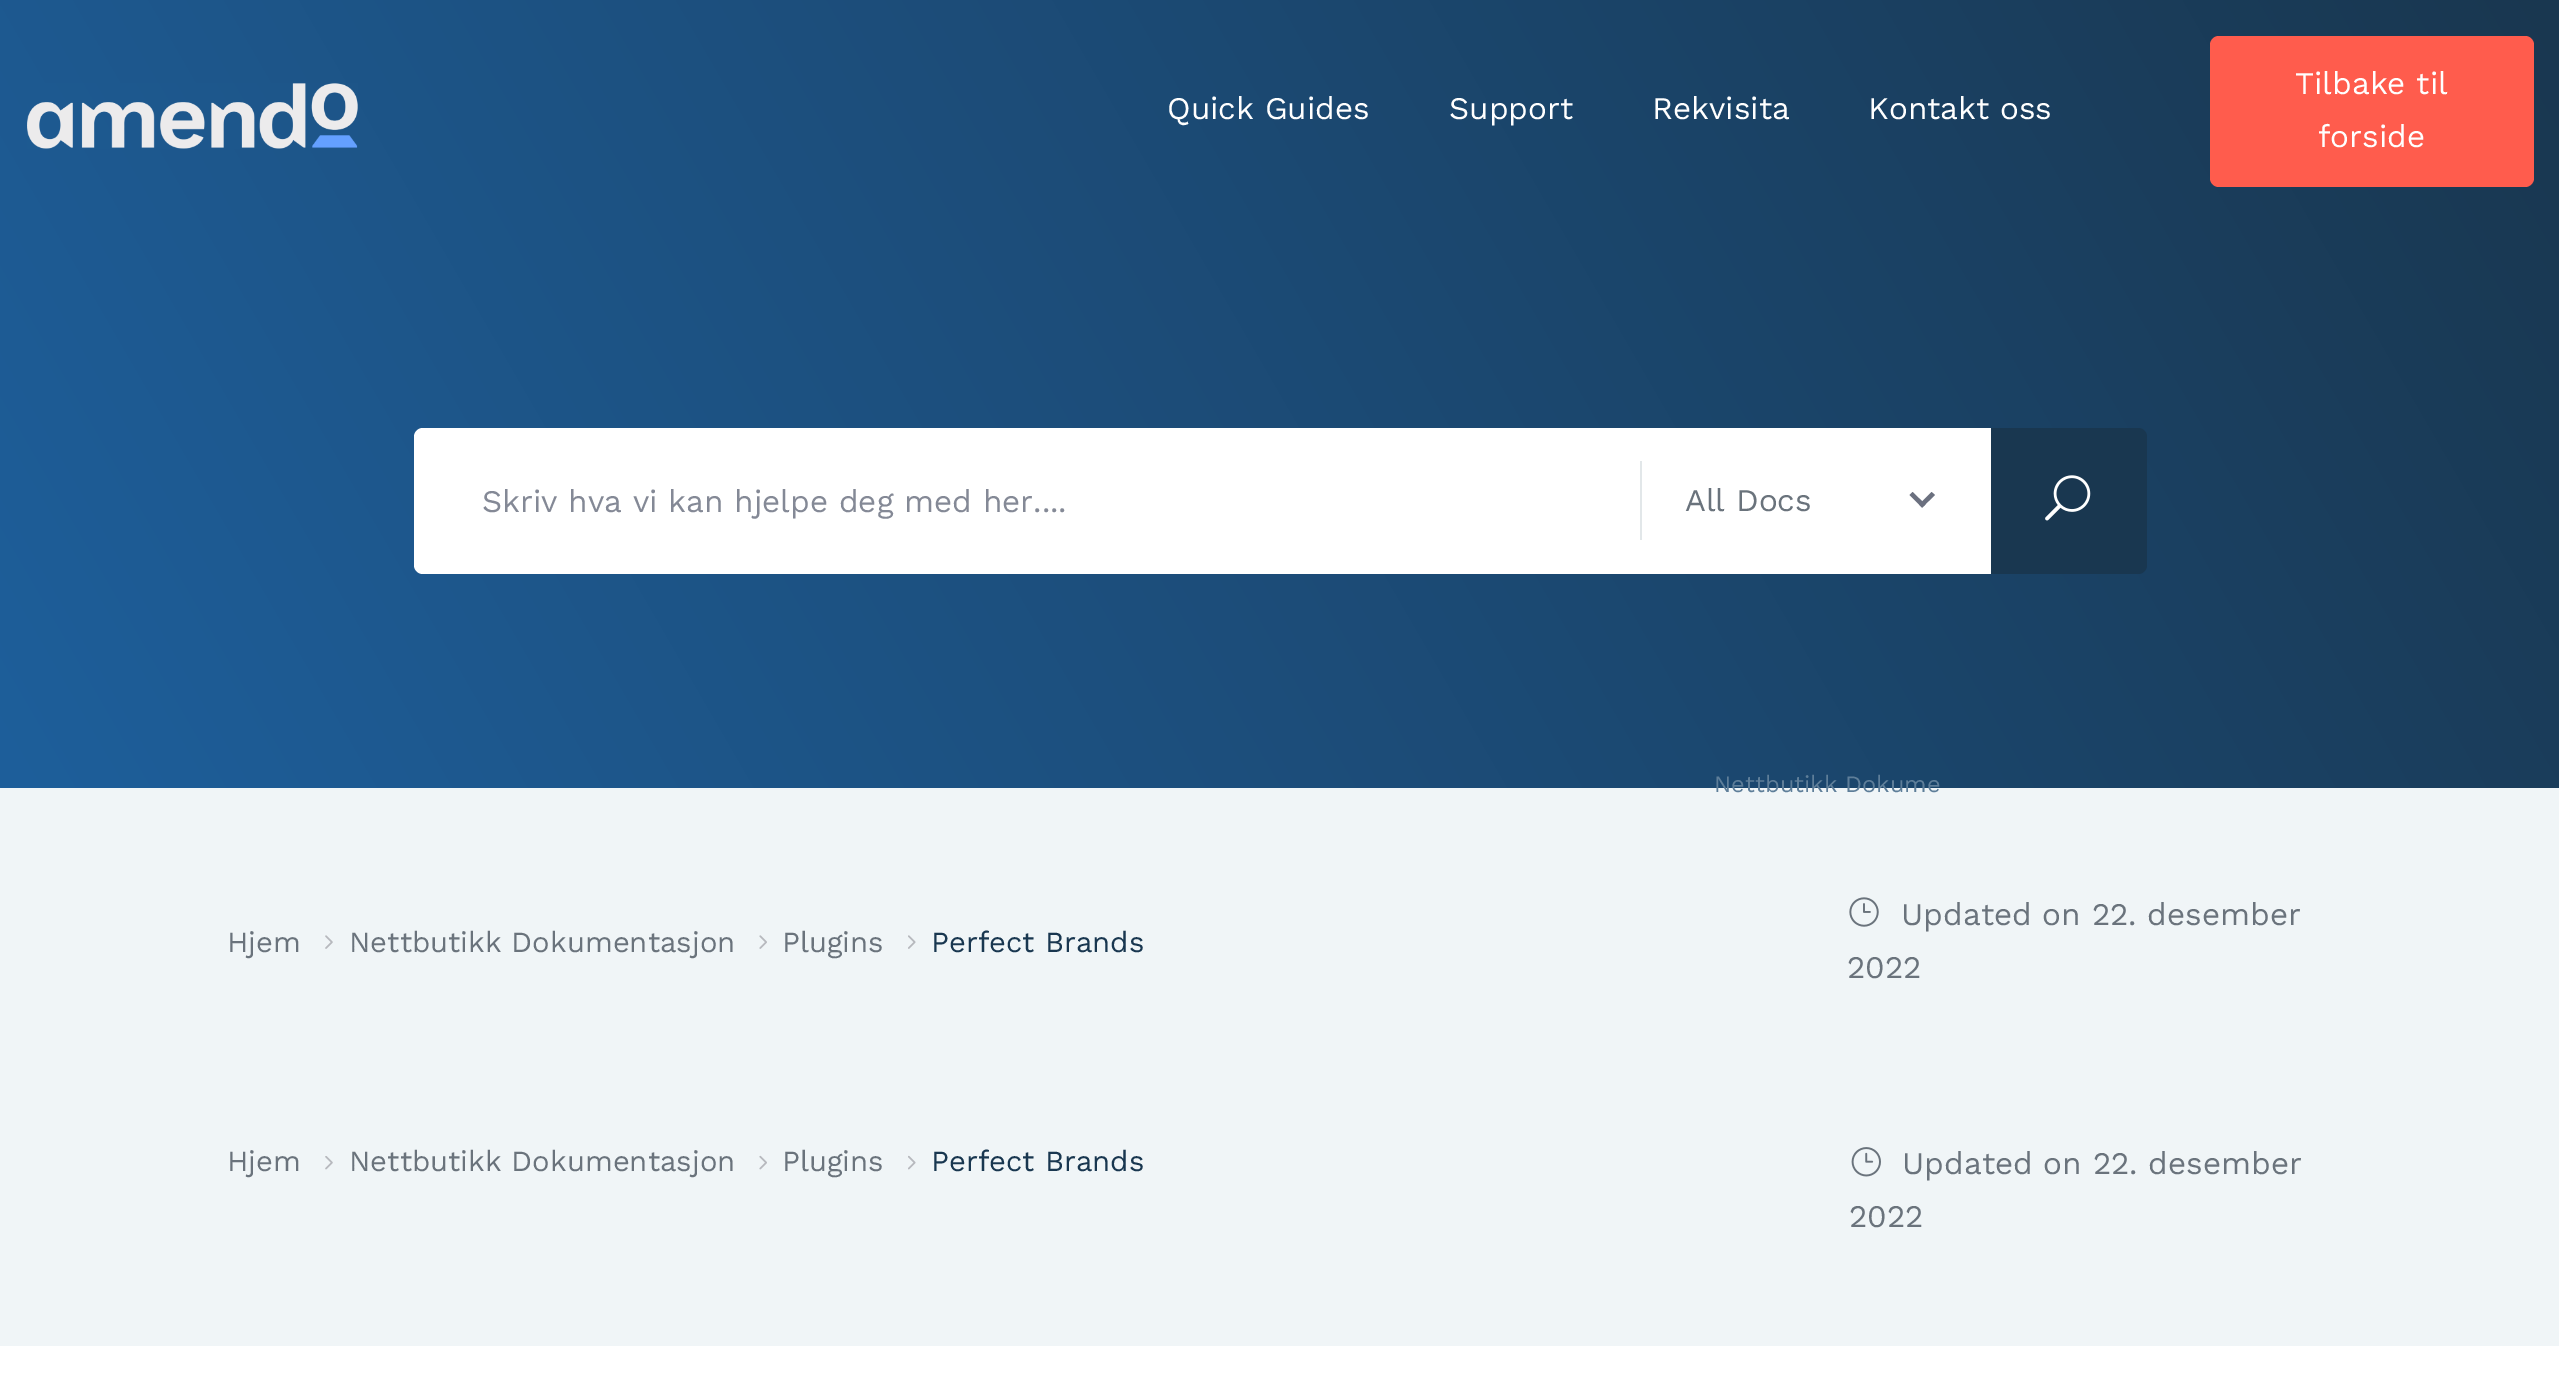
%!PS-Adobe-3.0
%%BoundingBox: 0 0 2559 1384
%%LanguageLevel: 3
%%Pages: 1
%%EndComments
%%BeginProlog
/rrect { 5 dict begin { /r /h /w /y /x } { exch def } forall
  x r add y moveto x w add y 2 copy h add r arct x w add y h add x 1 index r arct
  x y h add x y r arct x y 2 copy exch w add exch r arct closepath end } def
/drawimage { 5 dict begin { /h /w /y /x /name } { exch def } forall
  gsave x y translate w h scale
  w h 8 [w 0 0 h 0 0] name (r) file false 3 colorimage grestore end } def
%%EndProlog
%%BeginSetup
<< /PageSize [2559 1384] >> setpagedevice
%%EndSetup
%%Page: 1 1
0 1384 translate 1 -1 scale
4 setmiterlimit
1 setgray
0 0 2559 1384 rectfill
gsave newpath 0 0 moveto 2559 0 lineto 2559 788 lineto 0 788 lineto closepath clip newpath
<< /ShadingType 2 /ColorSpace /DeviceRGB /Coords [150 1047 2411 -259] /Extend [true true] /Function << /FunctionType 2 /Domain [0 1] /C0 [0.118 0.373 0.608] /C1 [0.098 0.216 0.314] /N 1 >> >> shfill grestore
(images/1.raw) 27 83 331 66 drawimage
1 0.361 0.302 setrgbcolor
2210 36 324 151 9 rrect fill
1 setgray
newpath 423 428 moveto 1643 428 lineto 1643 574 lineto 423 574 lineto 418 574 414 570 414 565 curveto 414 437 lineto 414 432 418 428 423 428 curveto closepath fill
0.098 0.216 0.314 setrgbcolor
newpath 1989 428 moveto 2138 428 lineto 2143 428 2147 432 2147 437 curveto 2147 565 lineto 2147 570 2143 574 2138 574 curveto 1989 574 lineto closepath fill
1 setgray
1643 428 348 146 rectfill
0.886 0.906 0.914 setrgbcolor
1640 461 2 79 rectfill
0.42 0.439 0.498 setrgbcolor
newpath 1931.5 492 moveto 1935 495 lineto 1922 507.5 lineto 1919 504.5 lineto closepath fill
newpath 1912.5 492 moveto 1925.5 504.5 lineto 1922 507.5 lineto 1909.5 495 lineto closepath fill
(images/2.raw) 2045 475 46 46 drawimage
0.941 0.961 0.969 setrgbcolor
0 788 2559 558 rectfill
(images/3.raw) 325 935 8 14 drawimage
(images/4.raw) 759 935 8 14 drawimage
(images/5.raw) 908 935 8 14 drawimage
(images/6.raw) 1849 897 30 30 drawimage
(images/7.raw) 325 1156 8 14 drawimage
(images/8.raw) 759 1155 8 15 drawimage
(images/9.raw) 908 1155 8 15 drawimage
(images/10.raw) 1851 1147 30 30 drawimage
/WorkSans-Regular [31.5 0 0 -31.5 0 0] selectfont
1 setgray
1167 119 moveto (Quick Guides) show
1449 119 moveto (Support) show
1652 119 moveto (Rekvisita) show
1868 119 moveto (Kontakt oss) show
2295 94 moveto (Tilbake til) show
2318 147 moveto (forside) show
0.518 0.537 0.588 setrgbcolor
482 512 moveto (Skriv hva vi kan hjelpe deg med her....) show
0.416 0.451 0.486 setrgbcolor
1685 511 moveto (All Docs) show
/WorkSans-Regular [23.6 0 0 -23.6 0 0] selectfont
0.369 0.494 0.6 setrgbcolor
1714 792 moveto (Nettbutikk Dokume) show
/WorkSans-Regular [29.25 0 0 -29.25 0 0] selectfont
0.416 0.451 0.486 setrgbcolor
227 952 moveto (Hjem) show
349 952 moveto (Nettbutikk Dokumentasjon) show
782 952 moveto (Plugins) show
0.098 0.216 0.314 setrgbcolor
931 952 moveto (Perfect Brands) show
/WorkSans-Regular [31.5 0 0 -31.5 0 0] selectfont
0.416 0.451 0.486 setrgbcolor
1901 925 moveto (Updated on 22. desember) show
1847 978 moveto (2022) show
/WorkSans-Regular [29.25 0 0 -29.25 0 0] selectfont
227 1171 moveto (Hjem) show
349 1171 moveto (Nettbutikk Dokumentasjon) show
782 1171 moveto (Plugins) show
0.098 0.216 0.314 setrgbcolor
931 1171 moveto (Perfect Brands) show
/WorkSans-Regular [31.5 0 0 -31.5 0 0] selectfont
0.416 0.451 0.486 setrgbcolor
1902 1174 moveto (Updated on 22. desember) show
1849 1227 moveto (2022) show
showpage
%%EOF
